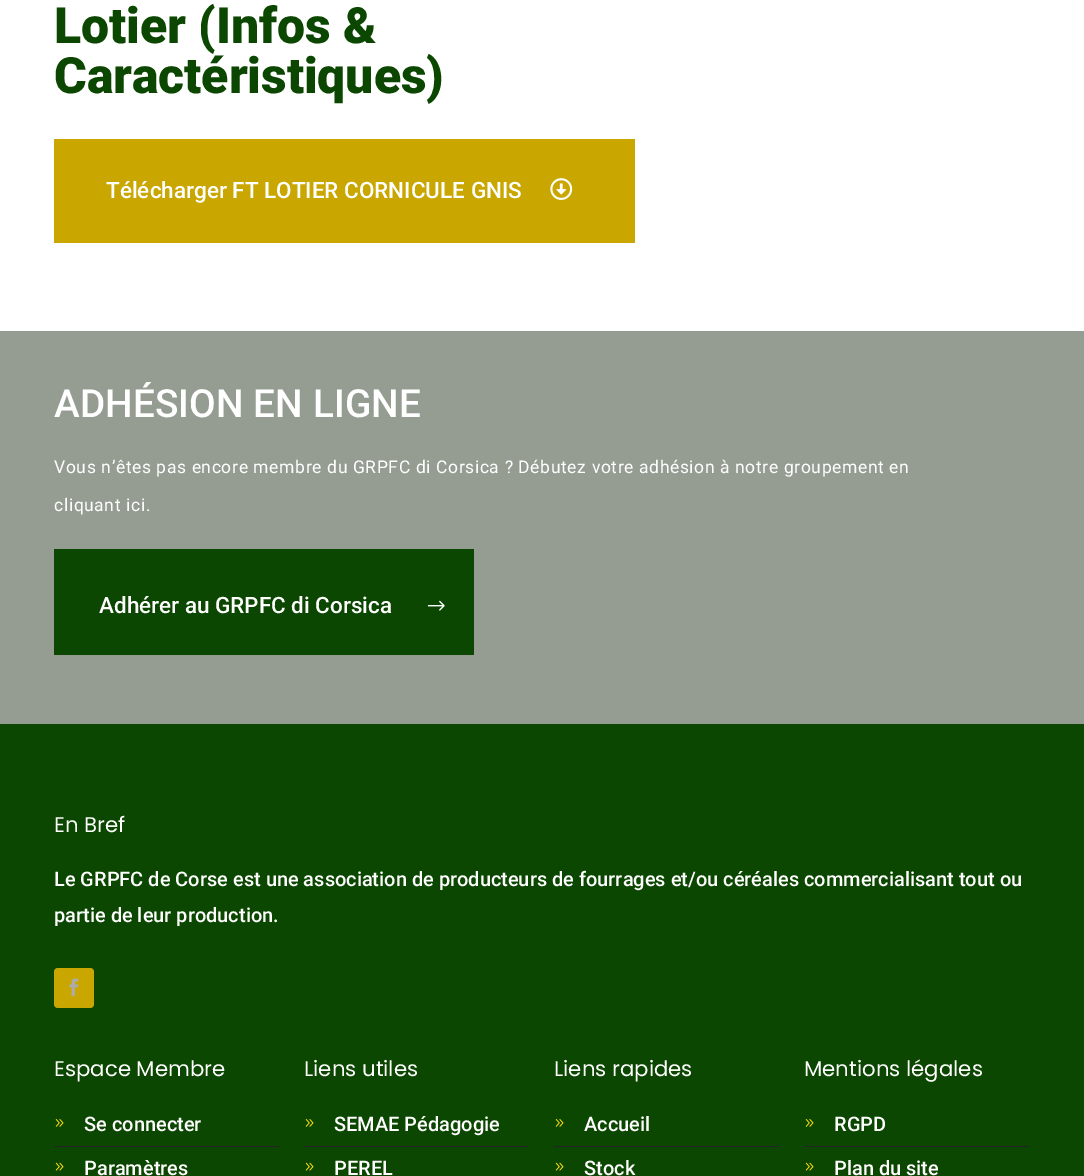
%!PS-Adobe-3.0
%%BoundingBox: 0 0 1084 1176
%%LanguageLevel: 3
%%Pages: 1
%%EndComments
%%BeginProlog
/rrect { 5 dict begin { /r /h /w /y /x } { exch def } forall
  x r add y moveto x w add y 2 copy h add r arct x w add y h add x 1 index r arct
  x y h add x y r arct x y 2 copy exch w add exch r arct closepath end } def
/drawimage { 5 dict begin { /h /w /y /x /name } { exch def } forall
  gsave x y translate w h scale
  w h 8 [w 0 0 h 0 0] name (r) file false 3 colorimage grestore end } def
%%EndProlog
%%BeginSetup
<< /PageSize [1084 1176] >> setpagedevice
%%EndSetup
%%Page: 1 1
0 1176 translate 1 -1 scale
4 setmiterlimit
1 setgray
0 0 1084 1176 rectfill
0.788 0.655 0 setrgbcolor
54 139 581 104 rectfill
(images/1.raw) 550 178 23 22 drawimage
0.584 0.616 0.576 setrgbcolor
0 331 1084 393 rectfill
0.043 0.278 0 setrgbcolor
54 549 420 106 rectfill
(images/2.raw) 427 600 18 11 drawimage
0 724 1084 452 rectfill
0.788 0.655 0 setrgbcolor
54 968 40 40 4 rrect fill
(images/3.raw) 69 978 10 19 drawimage
0.141 setgray
54 1146 225 1 rectfill
(images/4.raw) 55 1119 9 8 drawimage
(images/5.raw) 55 1162 9 9 drawimage
304 1146 225 1 rectfill
(images/4.raw) 305 1119 9 8 drawimage
(images/5.raw) 305 1162 9 9 drawimage
554 1146 225 1 rectfill
(images/4.raw) 555 1119 9 8 drawimage
(images/5.raw) 555 1162 9 9 drawimage
804 1146 225 1 rectfill
(images/4.raw) 805 1119 9 8 drawimage
(images/5.raw) 805 1162 9 9 drawimage
/Roboto-Black [50 0 0 -50 0 0] selectfont
0.043 0.278 0 setrgbcolor
54 43 moveto -0.1 0 (Lotier \(Infos &) ashow
54 93 moveto -0.1 0 (Caractéristiques\)) ashow
/Roboto-Medium [22.5 0 0 -22.5 0 0] selectfont
1 setgray
106 198 moveto (Télécharger FT LOTIER CORNICULE GNIS) show
/Roboto-Medium [38.75 0 0 -38.75 0 0] selectfont
54 417 moveto 0.1 0 (ADHÉSION EN LIGNE) ashow
/Roboto-Regular [17.5 0 0 -17.5 0 0] selectfont
54 473 moveto 0.62 0 (Vous n’êtes pas encore membre du GRPFC di Corsica ? Débutez votre adhésion à notre groupement en) ashow
54 511 moveto 0.62 0 (cliquant ici.) ashow
/Roboto-Medium [22.5 0 0 -22.5 0 0] selectfont
99 613 moveto (Adhérer au GRPFC di Corsica) show
/Poppins-Regular [21.25 0 0 -21.25 0 0] selectfont
54 832 moveto (En Bref) show
/Roboto-Medium [20 0 0 -20 0 0] selectfont
54 886 moveto (Le GRPFC de Corse est une association de producteurs de fourrages et/ou céréales commercialisant tout ou) show
54 922 moveto (partie de leur production.) show
/Poppins-Regular [21.25 0 0 -21.25 0 0] selectfont
54 1076 moveto (Espace Membre) show
/Roboto-Medium [20 0 0 -20 0 0] selectfont
84 1131 moveto (Se connecter) show
84 1175 moveto (Paramètres) show
/Poppins-Regular [21.25 0 0 -21.25 0 0] selectfont
304 1076 moveto (Liens utiles) show
/Roboto-Medium [20 0 0 -20 0 0] selectfont
334 1131 moveto (SEMAE Pédagogie) show
334 1175 moveto (PEREL) show
/Poppins-Regular [21.25 0 0 -21.25 0 0] selectfont
554 1076 moveto (Liens rapides) show
/Roboto-Medium [20 0 0 -20 0 0] selectfont
584 1131 moveto (Accueil) show
584 1175 moveto (Stock) show
/Poppins-Regular [21.25 0 0 -21.25 0 0] selectfont
804 1076 moveto (Mentions légales) show
/Roboto-Medium [20 0 0 -20 0 0] selectfont
834 1131 moveto (RGPD) show
834 1175 moveto (Plan du site) show
showpage
%%EOF
